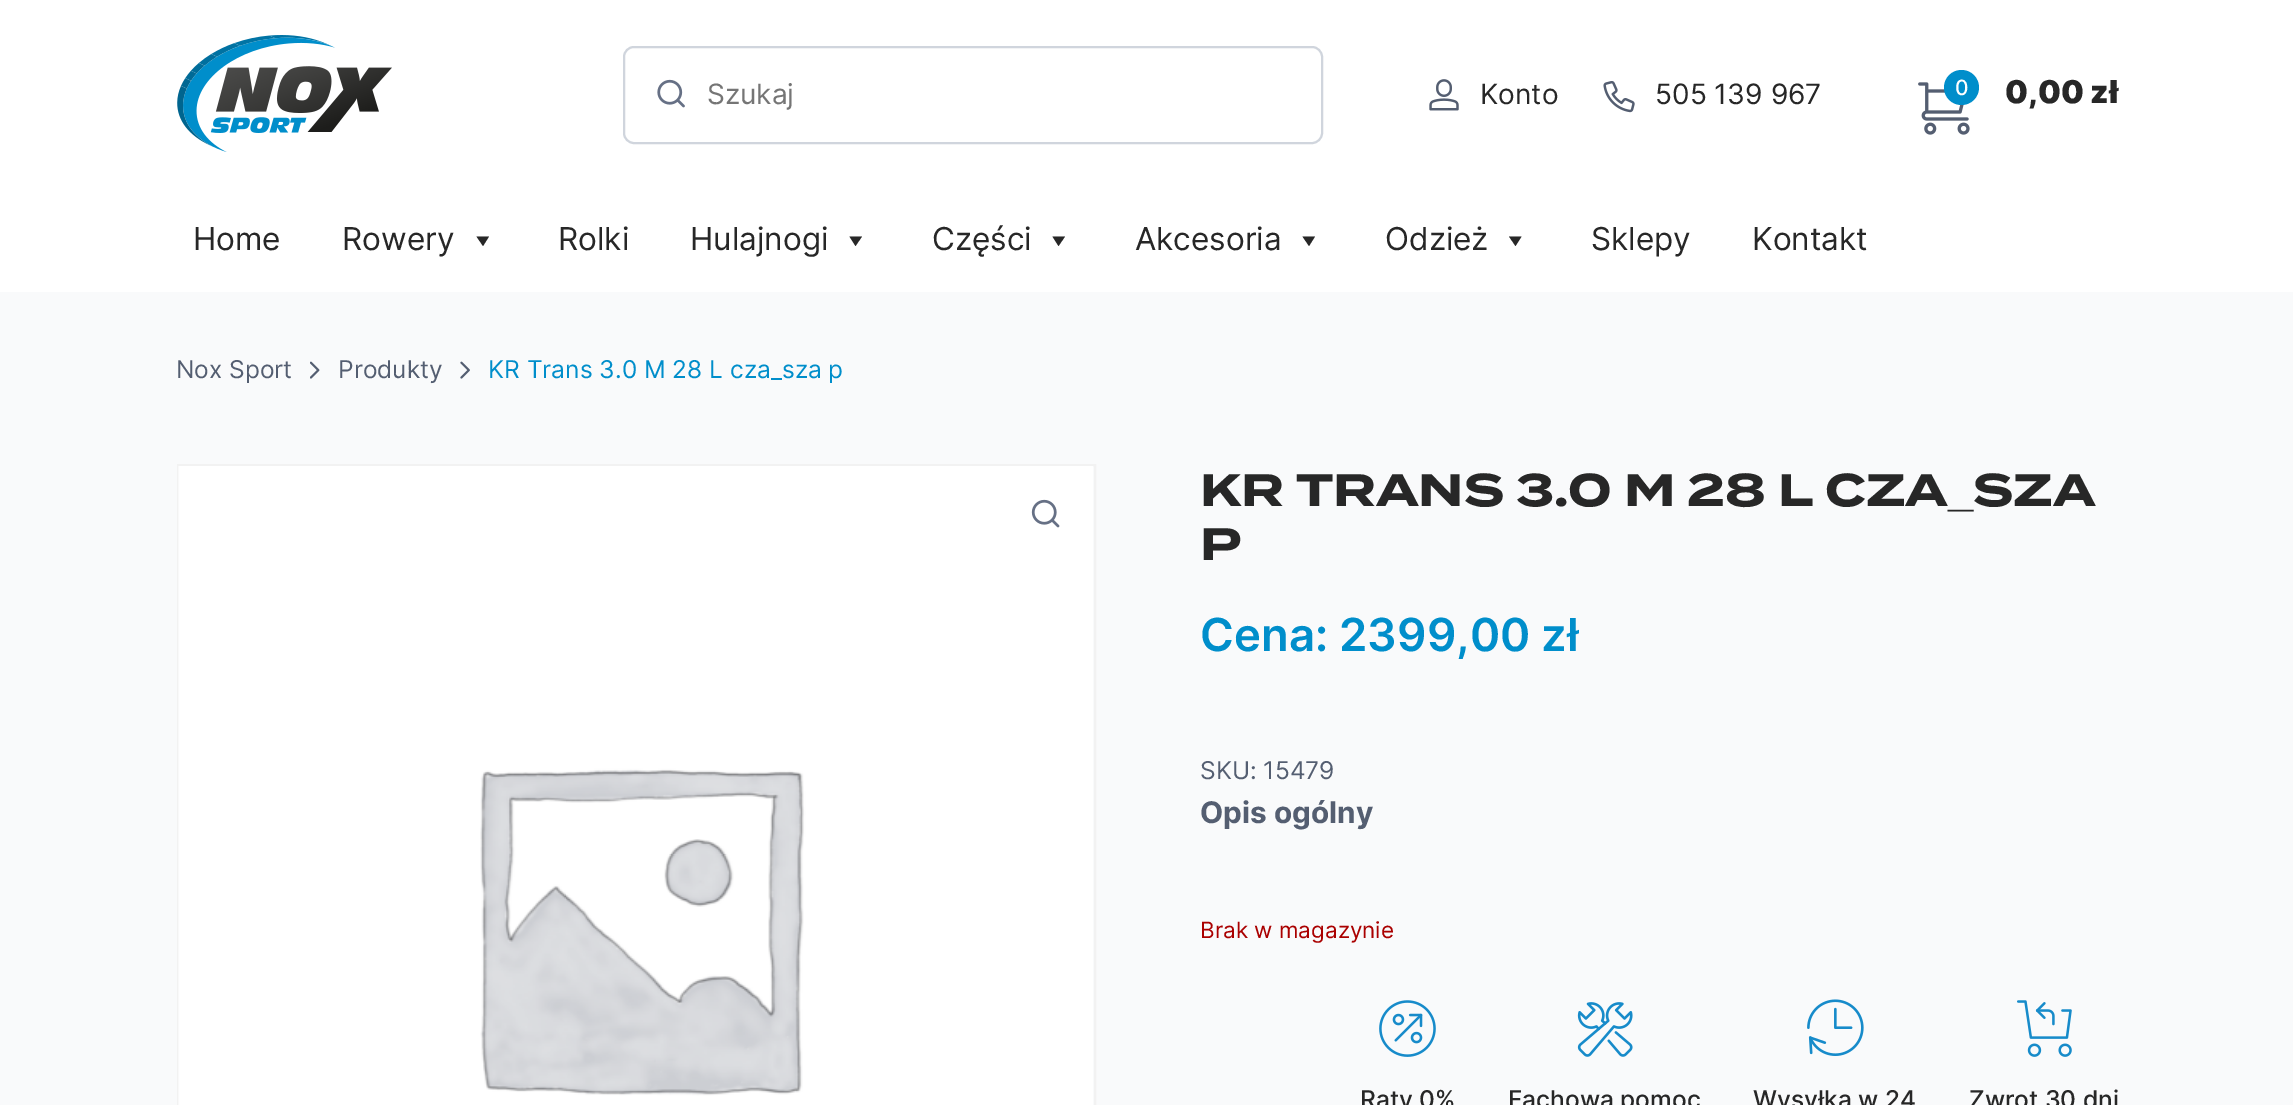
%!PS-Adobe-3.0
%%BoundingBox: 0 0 2293 1105
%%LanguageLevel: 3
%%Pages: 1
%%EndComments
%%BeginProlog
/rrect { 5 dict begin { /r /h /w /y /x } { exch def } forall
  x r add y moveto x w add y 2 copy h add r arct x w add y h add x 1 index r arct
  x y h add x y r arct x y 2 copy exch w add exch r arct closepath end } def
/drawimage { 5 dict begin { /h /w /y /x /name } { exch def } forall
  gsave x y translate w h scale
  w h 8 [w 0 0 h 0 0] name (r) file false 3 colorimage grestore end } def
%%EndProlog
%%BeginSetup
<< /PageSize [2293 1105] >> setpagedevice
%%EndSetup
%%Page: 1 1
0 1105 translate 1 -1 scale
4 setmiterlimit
0.976 0.98 0.984 setrgbcolor
0 0 2293 1105 rectfill
1 setgray
0 0 2293 292 rectfill
(images/1.raw) 177 35 215 117 drawimage
0.816 0.835 0.867 setrgbcolor
2 setlinewidth
624 47 698 96 10 rrect stroke
(images/2.raw) 657 79 28 29 drawimage
(images/3.raw) 1429 79 30 32 drawimage
(images/4.raw) 1603 81 32 32 drawimage
(images/5.raw) 1918 82 52 53 drawimage
0 0.557 0.796 setrgbcolor
newpath 1961.5 87.5 17.5 0 360 arc closepath fill
0.153 setgray
newpath 489 236.5 moveto 483 246 lineto 476.5 236.5 lineto closepath fill
newpath 862 236.5 moveto 855.5 246 lineto 849.5 236.5 lineto closepath fill
newpath 1065 236.5 moveto 1058.5 246 lineto 1052.5 236.5 lineto closepath fill
newpath 1315 236.5 moveto 1309 246 lineto 1302.5 236.5 lineto closepath fill
newpath 1521.5 236.5 moveto 1515.5 246 lineto 1509 236.5 lineto closepath fill
(images/6.raw) 310 361 10 18 drawimage
(images/7.raw) 460 361 10 18 drawimage
0.949 setgray
178 465 917 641 rectstroke
(images/8.raw) 178 466 915 639 drawimage
(images/9.raw) 1031 499 29 29 drawimage
(images/10.raw) 1379 1000 57 57 drawimage
(images/11.raw) 1577 1002 56 55 drawimage
(images/12.raw) 1807 999 57 57 drawimage
(images/13.raw) 2017 1000 55 57 drawimage
/Inter-Regular [28 0 0 -28 0 0] selectfont
0.459 setgray
707 104 moveto (Szukaj) show
0.153 setgray
1480 104 moveto (Konto) show
1655 104 moveto (505 139 967) show
/Inter-Medium [21 0 0 -21 0 0] selectfont
1 setgray
1955 95 moveto (0) show
/Inter-Black [31.5 0 0 -31.5 0 0] selectfont
0.153 setgray
2005 103 moveto (0,00 zł) show
/Inter-Regular [31.5 0 0 -31.5 0 0] selectfont
193 250 moveto (Home) show
342 250 moveto (Rowery) show
558 250 moveto (Rolki) show
690 250 moveto (Hulajnogi) show
932 250 moveto (Części) show
1135 250 moveto (Akcesoria) show
1385 250 moveto (Odzież) show
1591 250 moveto (Sklepy) show
1752 250 moveto (Kontakt) show
/Inter-Regular [24.5 0 0 -24.5 0 0] selectfont
0.329 0.369 0.443 setrgbcolor
176 378 moveto (Nox Sport) show
338 378 moveto (Produkty) show
0 0.557 0.796 setrgbcolor
488 378 moveto (KR Trans 3.0 M 28 L cza_sza p) show
/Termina-Bold [45.5 0 0 -45.5 0 0] selectfont
0.153 setgray
1200 506 moveto (KR TRANS 3.0 M 28 L CZA) show
1973 506 moveto (SZA) show
/LiberationSans-Bold [45.5 0 0 -45.5 0 0] selectfont
1948 506 moveto (_) show
/Termina-Bold [45.5 0 0 -45.5 0 0] selectfont
1200 560 moveto (P) show
/Inter-SemiBold [45.5 0 0 -45.5 0 0] selectfont
0 0.557 0.796 setrgbcolor
1200 651 moveto (Cena: 2399,00 zł) show
/Inter-Regular [24.5 0 0 -24.5 0 0] selectfont
0.329 0.369 0.443 setrgbcolor
1200 779 moveto (SKU: 15479) show
/Inter-Bold [29.75 0 0 -29.75 0 0] selectfont
1200 823 moveto (Opis ogólny) show
/Inter-Regular [22.5 0 0 -22.5 0 0] selectfont
0.667 0 0 setrgbcolor
1200 938 moveto (Brak w magazynie) show
/Inter-Medium [24.5 0 0 -24.5 0 0] selectfont
0.153 setgray
1360 1108 moveto (Raty 0%) show
1508 1108 moveto (Fachowa pomoc) show
1753 1108 moveto (Wysyłka w 24) show
1969 1108 moveto (Zwrot 30 dni) show
showpage
%%EOF
